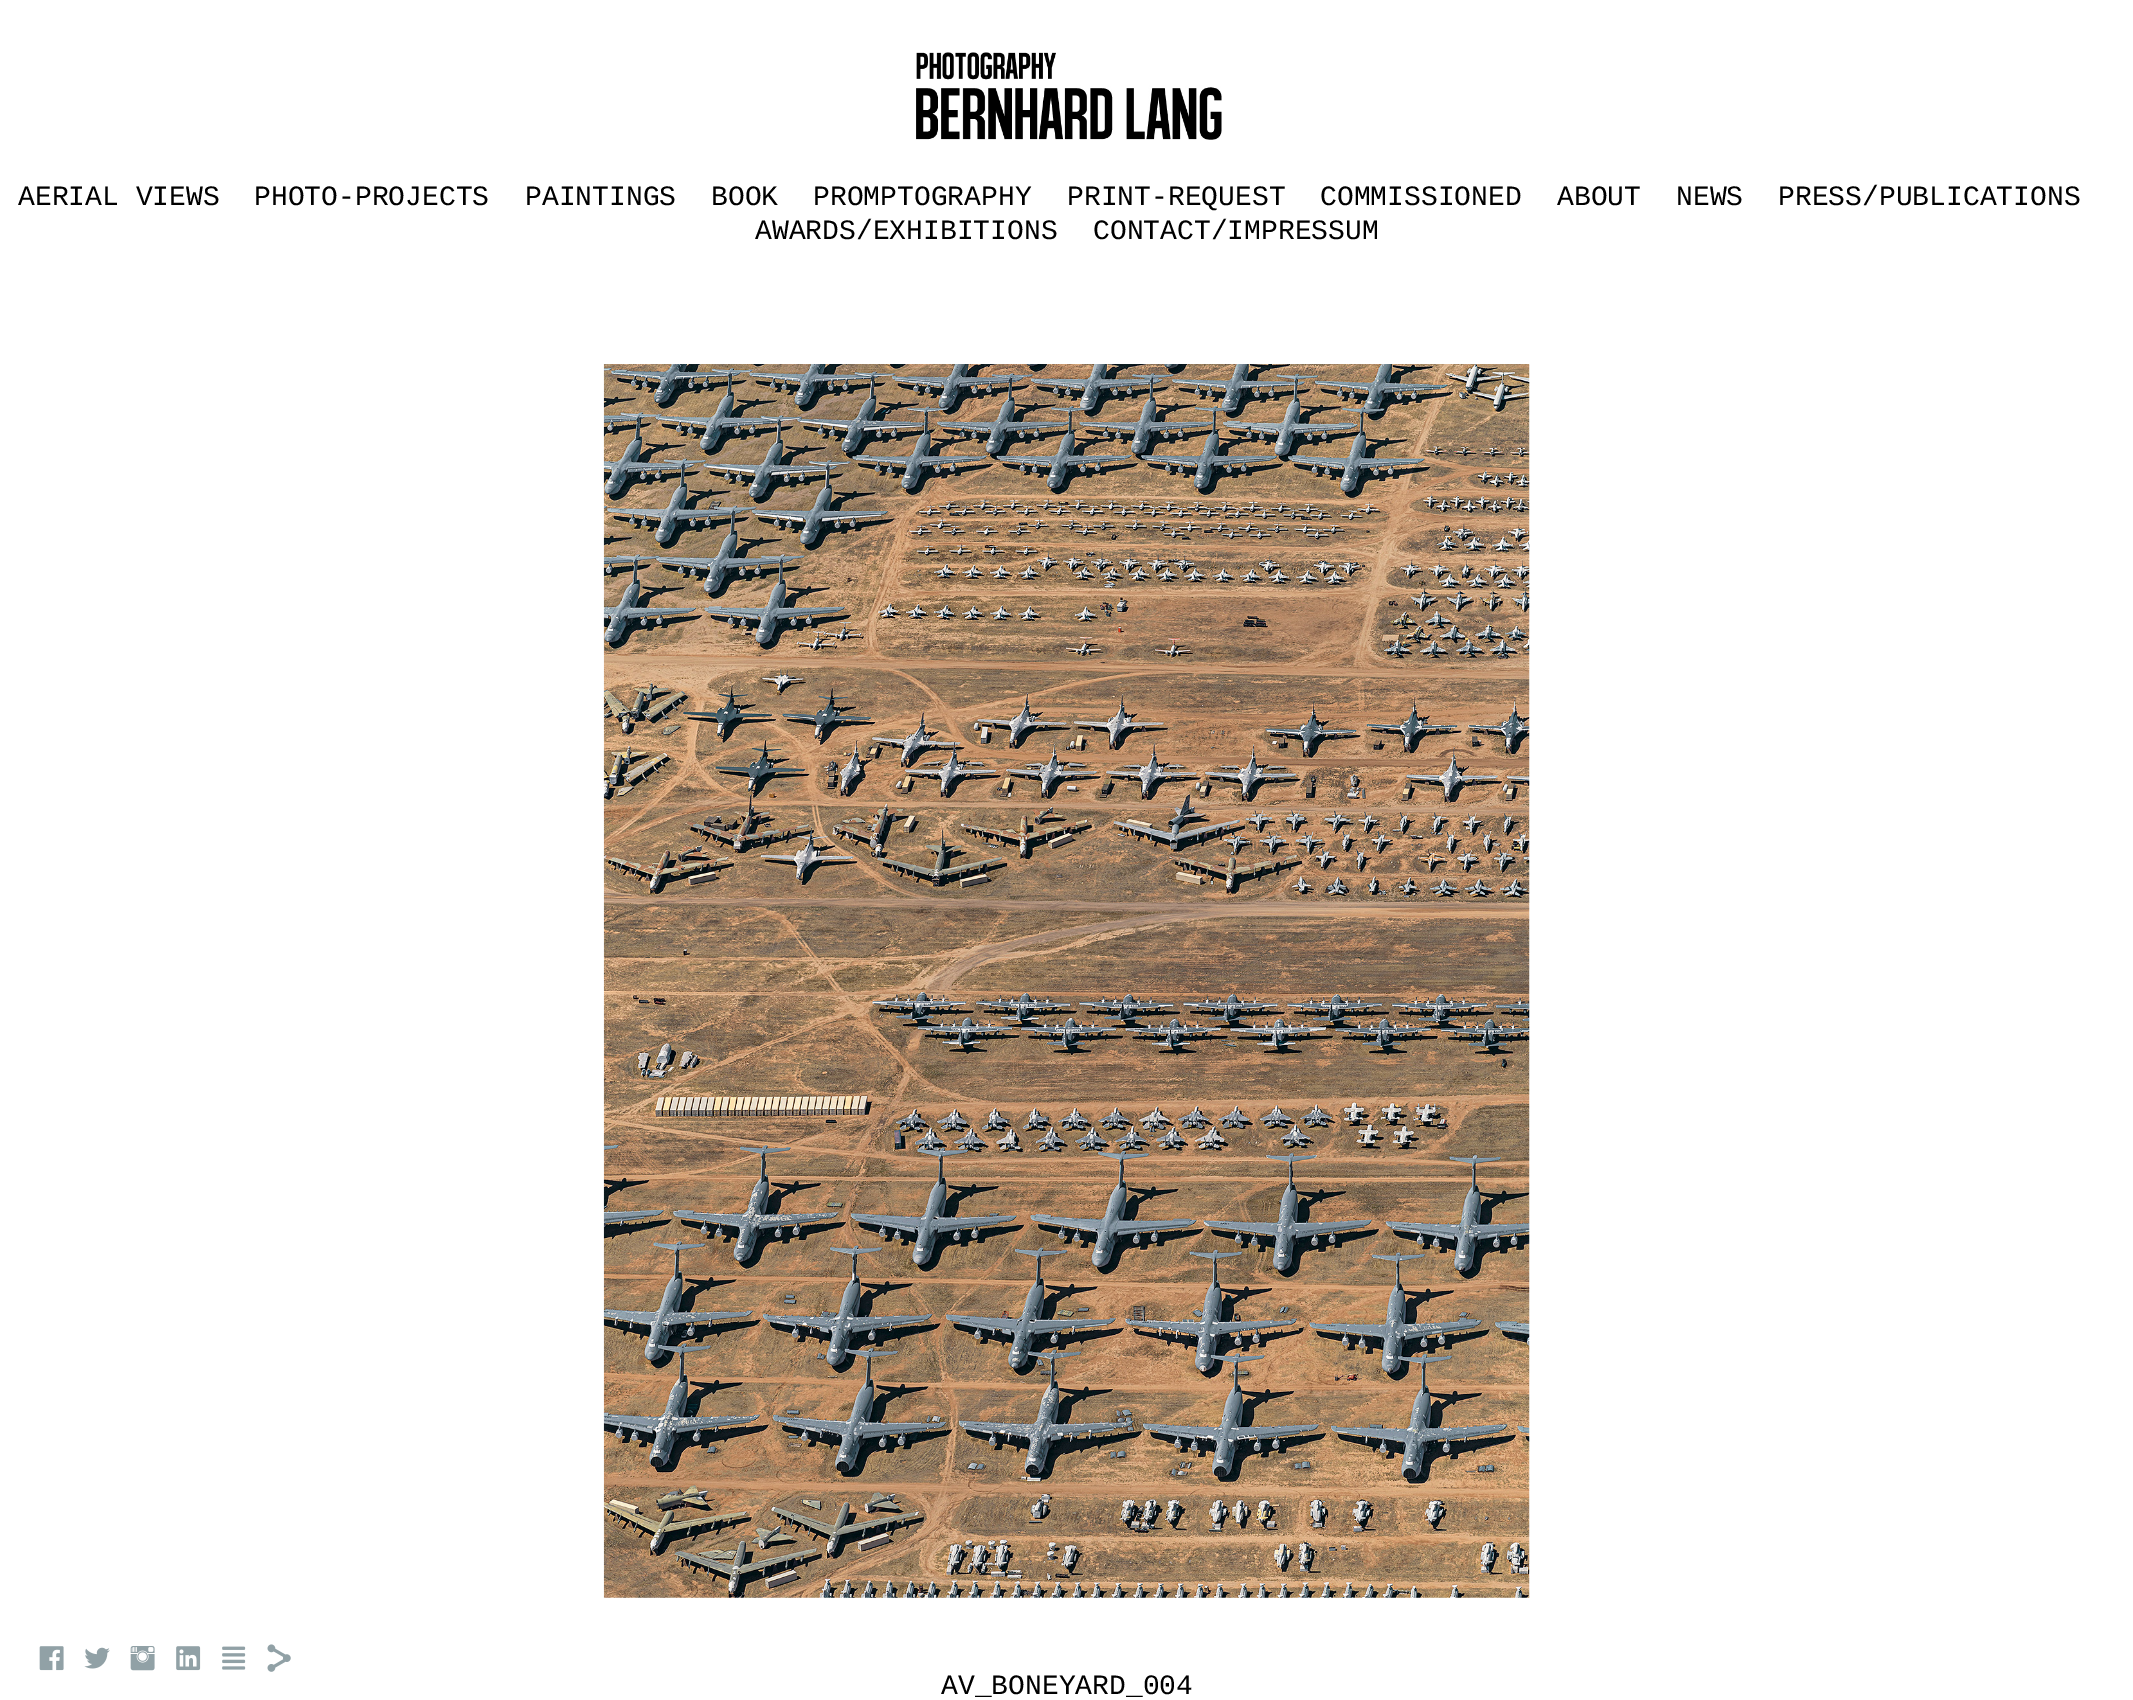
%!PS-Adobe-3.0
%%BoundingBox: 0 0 2133 1700
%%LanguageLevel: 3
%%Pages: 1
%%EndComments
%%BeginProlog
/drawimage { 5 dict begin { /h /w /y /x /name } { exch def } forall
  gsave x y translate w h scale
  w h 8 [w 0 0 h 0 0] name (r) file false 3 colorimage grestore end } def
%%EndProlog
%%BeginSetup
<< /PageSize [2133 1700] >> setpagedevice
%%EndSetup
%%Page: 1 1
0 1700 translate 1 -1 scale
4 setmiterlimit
1 setgray
0 0 2133 1700 rectfill
(images/1.raw) 916 52 306 88 drawimage
(images/2.raw) 39 1646 25 25 drawimage
(images/3.raw) 84 1647 26 22 drawimage
(images/4.raw) 130 1646 25 25 drawimage
(images/5.raw) 176 1646 25 25 drawimage
(images/6.raw) 222 1646 24 24 drawimage
(images/7.raw) 267 1644 24 28 drawimage
(images/8.raw) 603 364 927 1234 drawimage
/LiberationMono-Regular [28 0 0 -28 0 0] selectfont
0 setgray
18 205 moveto (AERIAL VIEWS) show
254 205 moveto (PHOTO-PROJECTS) show
525 205 moveto (PAINTINGS) show
711 205 moveto (BOOK) show
813 205 moveto (PROMPTOGRAPHY) show
1067 205 moveto (PRINT-REQUEST) show
1320 205 moveto (COMMISSIONED) show
1557 205 moveto (ABOUT) show
1676 205 moveto (NEWS) show
1778 205 moveto (PRESS/PUBLICATIONS) show
755 239 moveto (AWARDS/EXHIBITIONS) show
1093 239 moveto (CONTACT/IMPRESSUM) show
941 1694 moveto (AV_BONEYARD_004) show
showpage
%%EOF
